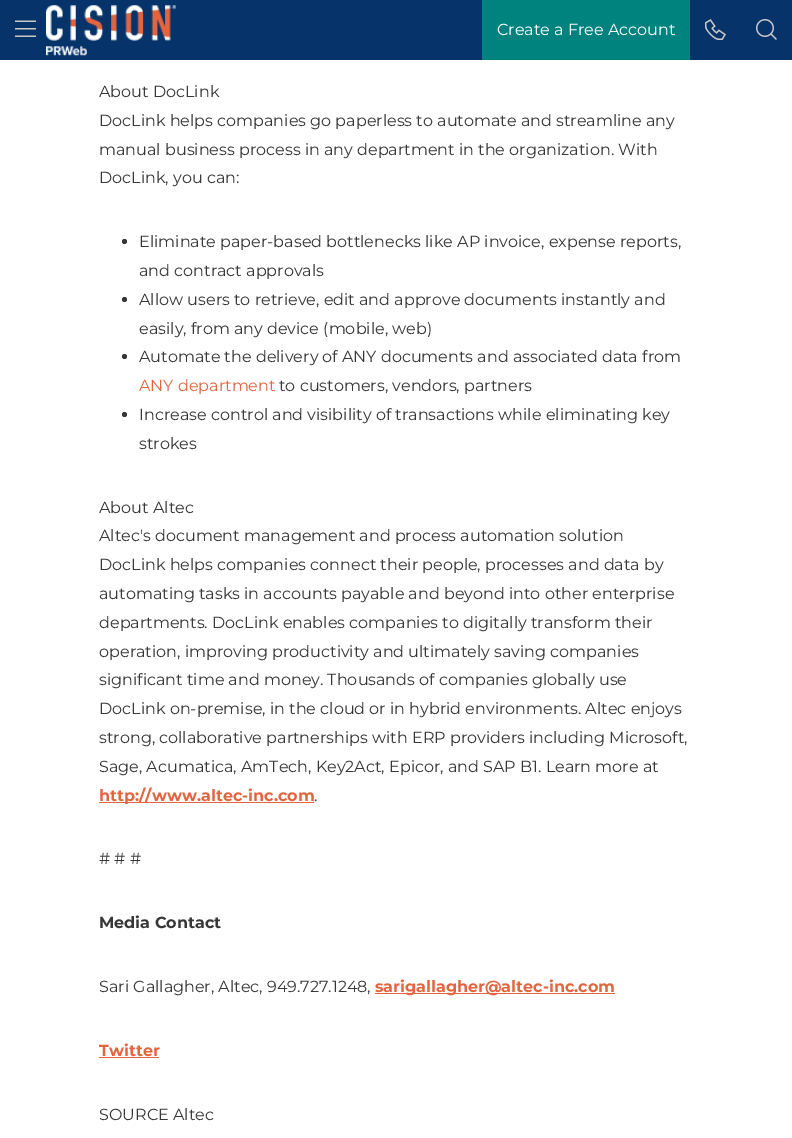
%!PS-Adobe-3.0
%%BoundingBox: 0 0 792 1138
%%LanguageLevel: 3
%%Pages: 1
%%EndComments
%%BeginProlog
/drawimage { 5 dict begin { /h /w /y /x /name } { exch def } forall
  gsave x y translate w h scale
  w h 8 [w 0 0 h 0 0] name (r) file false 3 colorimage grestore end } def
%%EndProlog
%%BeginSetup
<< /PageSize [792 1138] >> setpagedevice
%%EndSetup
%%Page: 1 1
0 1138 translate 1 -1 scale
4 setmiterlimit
1 setgray
0 0 792 1138 rectfill
0.024 0.2 0.412 setrgbcolor
0 0 792 60 rectfill
(images/1.raw) 15 20 21 17 drawimage
(images/2.raw) 46 5 130 51 drawimage
0 0.514 0.494 setrgbcolor
482 0 208 60 rectfill
(images/3.raw) 705 19 21 21 drawimage
(images/4.raw) 756 19 21 21 drawimage
0.216 setgray
newpath 124.5 241.5 2.5 0 360 arc closepath fill
newpath 124.5 299.5 2.5 0 360 arc closepath fill
newpath 124.5 356.5 2.5 0 360 arc closepath fill
newpath 124.5 414.5 2.5 0 360 arc closepath fill
0.886 0.396 0.251 setrgbcolor
99 802 215 1 rectfill
375 993 240 1 rectfill
99 1057 60 1 rectfill
/Montserrat-Regular [16 0 0 -16 0 0] selectfont
1 setgray
497 35 moveto (Create a Free Account) show
0.216 setgray
99 97 moveto (About DocLink) show
99 126 moveto (DocLink helps companies go paperless to automate and streamline any) show
99 155 moveto (manual business process in any department in the organization. With) show
99 183 moveto (DocLink, you can:) show
139 247 moveto (Eliminate paper-based bottlenecks like AP invoice, expense reports,) show
139 276 moveto (and contract approvals) show
139 305 moveto (Allow users to retrieve, edit and approve documents instantly and) show
139 334 moveto (easily, from any device \(mobile, web\)) show
139 362 moveto (Automate the delivery of ANY documents and associated data from) show
0.886 0.396 0.251 setrgbcolor
139 391 moveto (ANY department) show
0.216 setgray
279 391 moveto (to customers, vendors, partners) show
139 420 moveto (Increase control and visibility of transactions while eliminating key) show
139 449 moveto (strokes) show
99 513 moveto (About Altec) show
99 541 moveto (Altec's document management and process automation solution) show
99 570 moveto (DocLink helps companies connect their people, processes and data by) show
99 599 moveto (automating tasks in accounts payable and beyond into other enterprise) show
99 628 moveto (departments. DocLink enables companies to digitally transform their) show
99 657 moveto (operation, improving productivity and ultimately saving companies) show
99 685 moveto (significant time and money. Thousands of companies globally use) show
99 714 moveto (DocLink on-premise, in the cloud or in hybrid environments. Altec enjoys) show
99 743 moveto (strong, collaborative partnerships with ERP providers including Microsoft,) show
99 772 moveto (Sage, Acumatica, AmTech, Key2Act, Epicor, and SAP B1. Learn more at) show
/Montserrat-Bold [16 0 0 -16 0 0] selectfont
0.886 0.396 0.251 setrgbcolor
99 801 moveto (http://www.altec-inc.com) show
/Montserrat-Regular [16 0 0 -16 0 0] selectfont
0.216 setgray
314 801 moveto (.) show
99 864 moveto (# # #) show
/Montserrat-Bold [16 0 0 -16 0 0] selectfont
99 928 moveto (Media Contact) show
/Montserrat-Regular [16 0 0 -16 0 0] selectfont
99 992 moveto (Sari Gallagher, Altec, 949.727.1248,) show
/Montserrat-Bold [16 0 0 -16 0 0] selectfont
0.886 0.396 0.251 setrgbcolor
375 992 moveto (sarigallagher@altec-inc.com) show
99 1056 moveto (Twitter) show
/Montserrat-Regular [16 0 0 -16 0 0] selectfont
0.216 setgray
99 1120 moveto (SOURCE Altec) show
showpage
%%EOF
